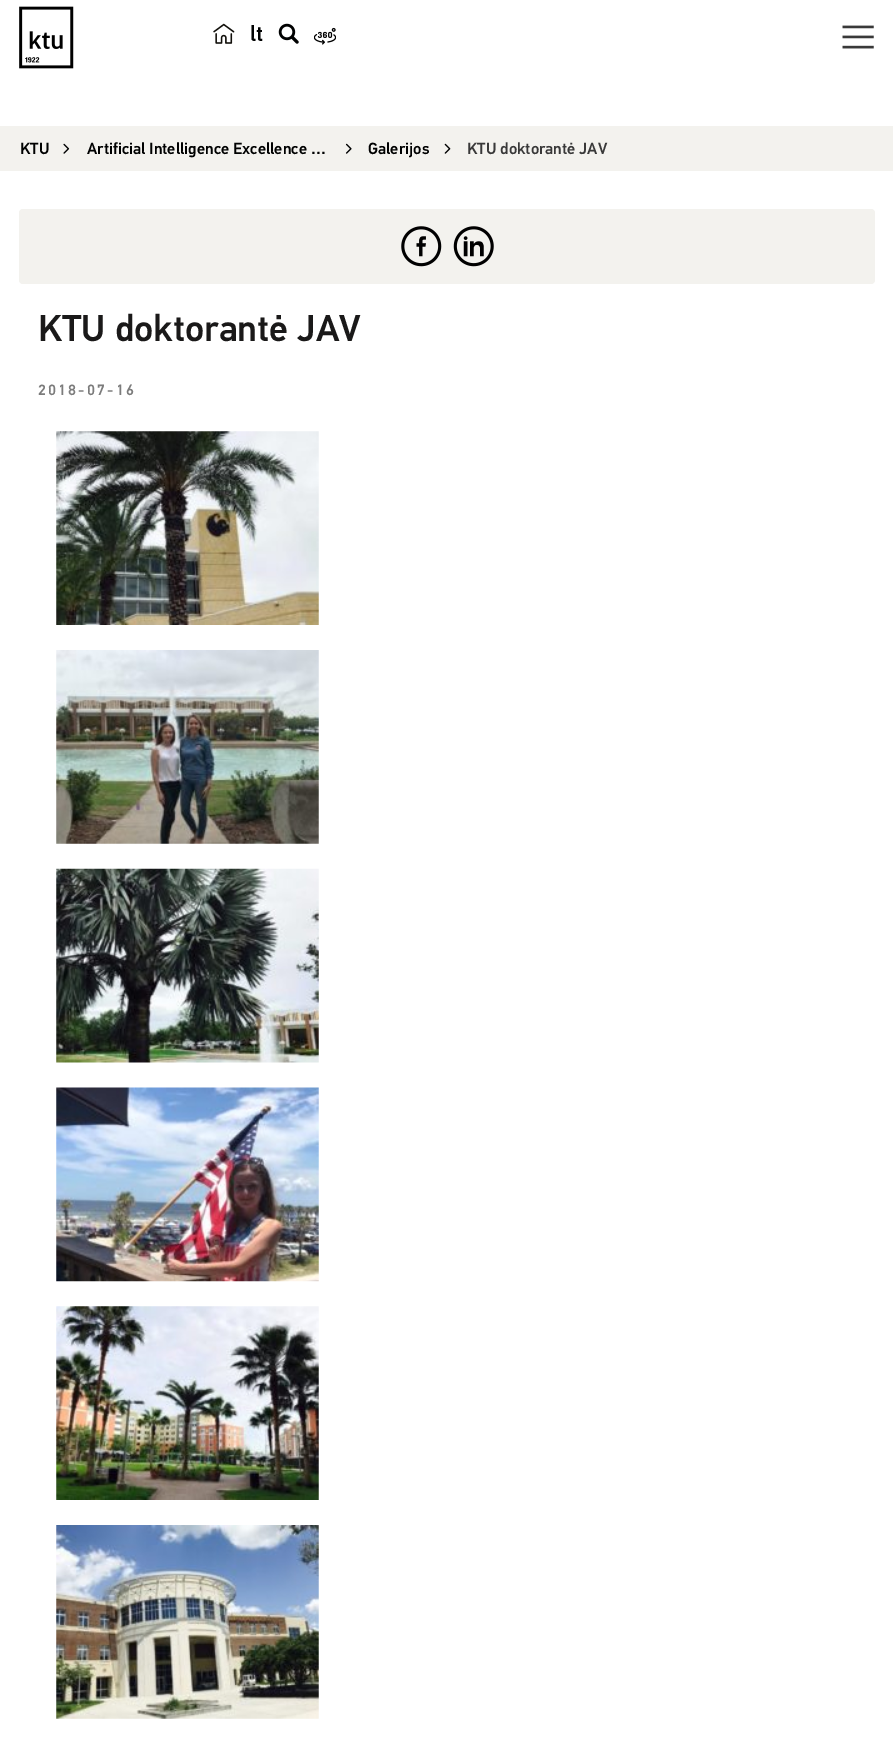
%!PS-Adobe-3.0
%%BoundingBox: 0 0 893 1742
%%LanguageLevel: 3
%%Pages: 1
%%EndComments
%%BeginProlog
/rrect { 5 dict begin { /r /h /w /y /x } { exch def } forall
  x r add y moveto x w add y 2 copy h add r arct x w add y h add x 1 index r arct
  x y h add x y r arct x y 2 copy exch w add exch r arct closepath end } def
/drawimage { 5 dict begin { /h /w /y /x /name } { exch def } forall
  gsave x y translate w h scale
  w h 8 [w 0 0 h 0 0] name (r) file false 3 colorimage grestore end } def
%%EndProlog
%%BeginSetup
<< /PageSize [893 1742] >> setpagedevice
%%EndSetup
%%Page: 1 1
0 1742 translate 1 -1 scale
4 setmiterlimit
1 setgray
0 0 893 1742 rectfill
(images/1.raw) 19 6 55 63 drawimage
(images/2.raw) 213 23 22 21 drawimage
(images/3.raw) 278 23 21 21 drawimage
(images/4.raw) 314 27 22 18 drawimage
(images/5.raw) 842 25 32 24 drawimage
0.953 0.949 0.933 setrgbcolor
0 126 893 45 rectfill
(images/6.raw) 63 143 7 11 drawimage
(images/7.raw) 345 143 7 11 drawimage
(images/8.raw) 444 143 7 11 drawimage
19 209 856 75 4 rrect fill
(images/9.raw) 401 226 41 41 drawimage
(images/10.raw) 453 226 41 41 drawimage
(images/11.raw) 56 431 263 194 drawimage
(images/12.raw) 56 650 263 194 drawimage
(images/13.raw) 56 868 263 195 drawimage
(images/14.raw) 56 1087 263 195 drawimage
(images/15.raw) 56 1306 263 194 drawimage
(images/16.raw) 56 1525 263 194 drawimage
/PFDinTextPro-Medium [22 0 0 -22 0 0] selectfont
0 0.004 0.004 setrgbcolor
250 41 moveto (lt) show
/PFDinTextPro-Medium [16.25 0 0 -16.25 0 0] selectfont
20 154 moveto (KTU) show
87 154 moveto (Artificial Intelligence Excellence …) show
368 154 moveto (Galerijos) show
0.224 setgray
467 154 moveto (KTU doktorantė JAV) show
/PFDinTextPro-Medium [37.5 0 0 -37.5 0 0] selectfont
0.102 0.098 0.098 setrgbcolor
38 341 moveto (KTU doktorantė JAV) show
/PFDinTextPro-Medium [15 0 0 -15 0 0] selectfont
0.486 setgray
38 395 moveto 2.25 0 (2018-07-16) ashow
showpage
%%EOF
